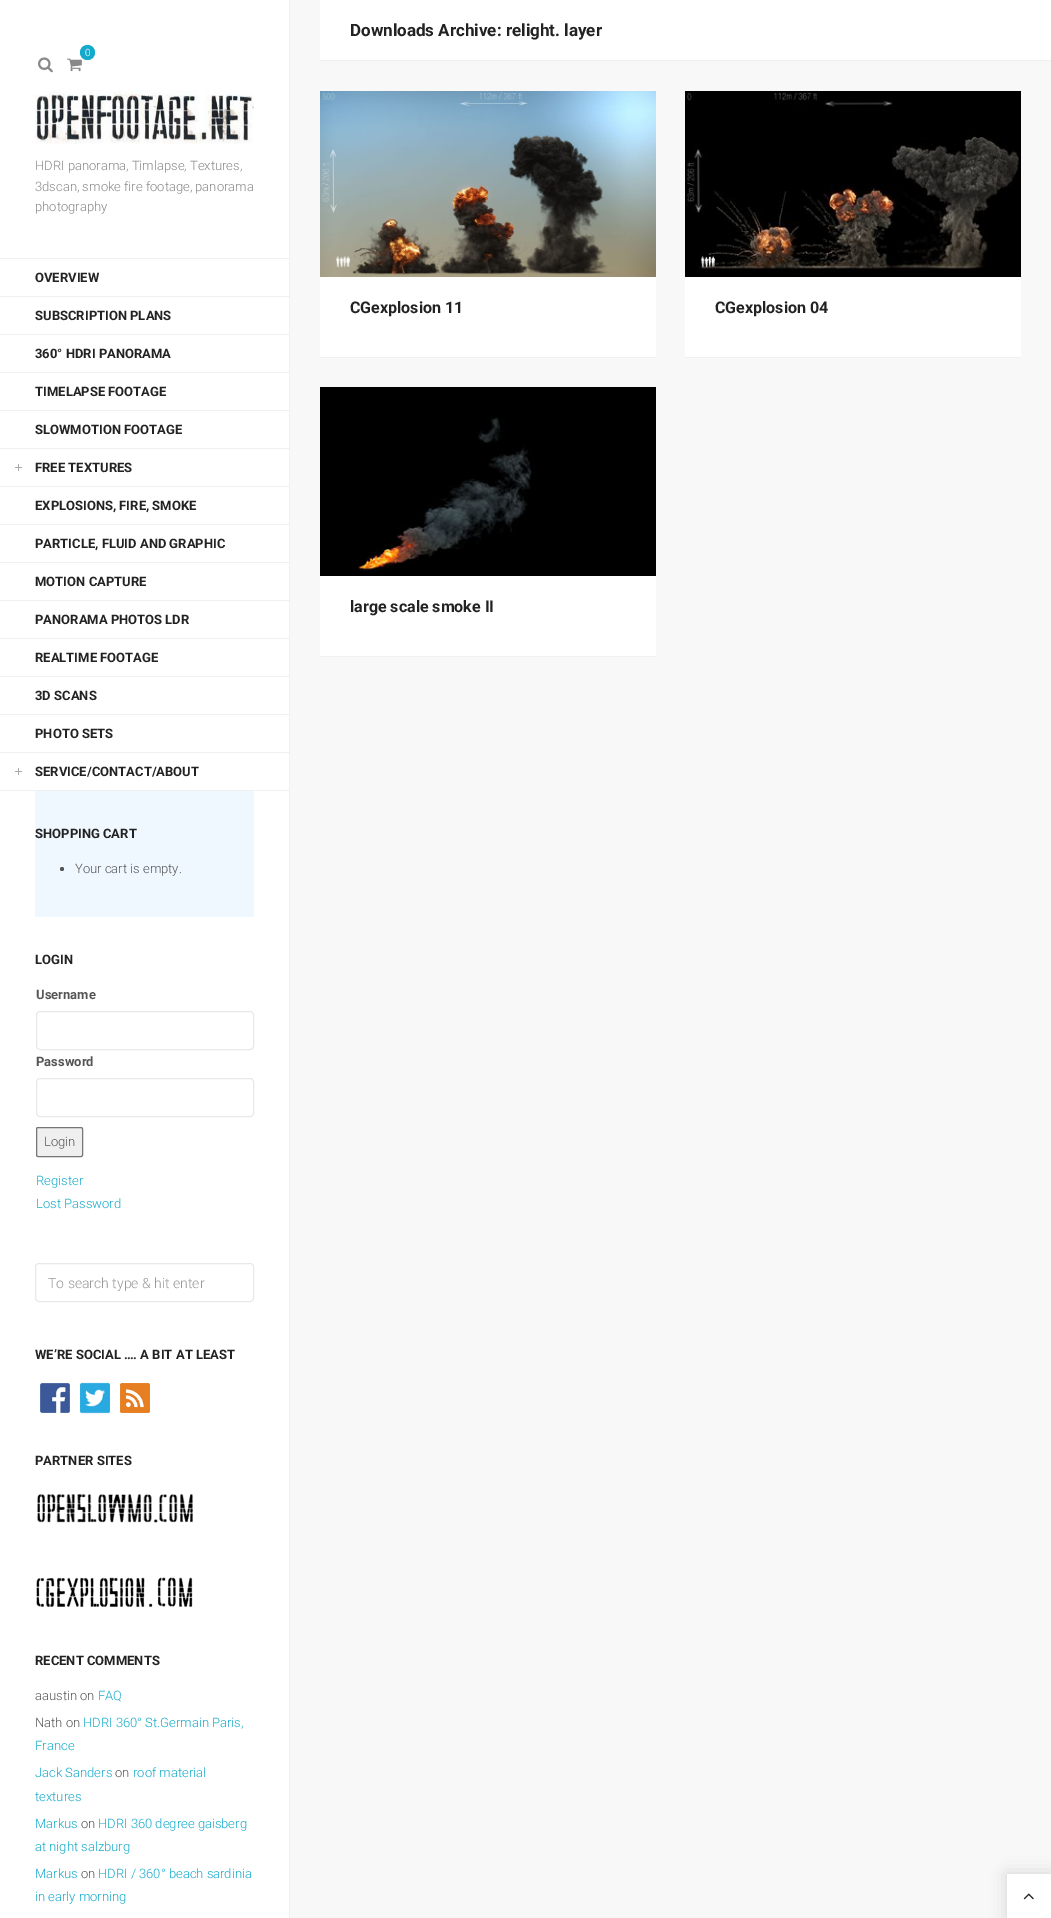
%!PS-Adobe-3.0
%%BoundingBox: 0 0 1051 1918
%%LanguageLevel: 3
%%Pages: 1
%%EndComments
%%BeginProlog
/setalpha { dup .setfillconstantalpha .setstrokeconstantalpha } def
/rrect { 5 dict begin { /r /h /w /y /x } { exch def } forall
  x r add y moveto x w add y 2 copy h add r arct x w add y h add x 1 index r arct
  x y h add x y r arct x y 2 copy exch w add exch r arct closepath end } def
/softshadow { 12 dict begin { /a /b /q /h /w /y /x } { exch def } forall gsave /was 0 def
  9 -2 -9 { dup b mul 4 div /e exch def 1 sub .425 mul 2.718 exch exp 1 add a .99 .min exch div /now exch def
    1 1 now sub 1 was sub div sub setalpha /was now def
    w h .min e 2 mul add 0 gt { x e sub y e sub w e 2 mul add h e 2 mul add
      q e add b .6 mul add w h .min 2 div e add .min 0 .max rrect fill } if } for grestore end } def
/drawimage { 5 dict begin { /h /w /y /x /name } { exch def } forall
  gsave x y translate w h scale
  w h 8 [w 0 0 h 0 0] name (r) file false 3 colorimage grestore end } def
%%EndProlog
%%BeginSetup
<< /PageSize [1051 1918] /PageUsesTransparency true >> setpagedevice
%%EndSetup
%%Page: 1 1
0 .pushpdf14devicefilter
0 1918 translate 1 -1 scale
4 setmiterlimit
0.973 setgray
0 0 1051 1918 rectfill
1 setgray
0 0 289 1918 rectfill
0.941 setgray
289 0 1 1918 rectfill
(images/1.raw) 67 58 15 14 drawimage
0.078 0.667 0.8 setrgbcolor
newpath 87.5 52.5 7.5 0 360 arc closepath fill
(images/2.raw) 38 57 15 16 drawimage
(images/3.raw) 35 90 219 54 drawimage
0.941 setgray
0 258 289 1 rectfill
0 790 289 1 rectfill
0 296 289 1 rectfill
0 334 289 1 rectfill
0 372 289 1 rectfill
0 410 289 1 rectfill
0 448 289 1 rectfill
0.667 setgray
15 467 7 1 rectfill
18 464 1 7 rectfill
0.941 setgray
0 486 289 1 rectfill
0 524 289 1 rectfill
0 562 289 1 rectfill
0 600 289 1 rectfill
0 638 289 1 rectfill
0 676 289 1 rectfill
0 714 289 1 rectfill
0 752 289 1 rectfill
0.667 setgray
15 771 7 1 rectfill
18 768 1 7 rectfill
0.941 0.973 1 setrgbcolor
35 791 219 126 rectfill
0.333 setgray
newpath 62 869 2 0 360 arc closepath fill
0.91 setgray
36.5 1011.5 217 38 3.5 rrect stroke
36.5 1078.5 217 38 3.5 rrect stroke
0.937 setgray
36.5 1127.5 46 29 1.5 rrect gsave fill grestore
0.463 setgray
stroke
0.91 setgray
35.5 1263.5 218 38 3.5 rrect stroke
(images/4.raw) 40 1383 30 30 drawimage
(images/5.raw) 80 1382 30 32 drawimage
(images/6.raw) 120 1383 30 30 drawimage
(images/7.raw) 37 1494 156 29 drawimage
(images/8.raw) 36 1577 157 30 drawimage
1 setgray
320 0 731 60 rectfill
0.941 setgray
320 60 731 1 rectfill
320 357 336 1 rectfill
(images/9.raw) 320 91 336 186 drawimage
1 setgray
320 277 336 80 rectfill
0.941 setgray
685 357 336 1 rectfill
(images/10.raw) 685 91 336 186 drawimage
1 setgray
685 277 336 80 rectfill
0.941 setgray
320 656 336 1 rectfill
(images/11.raw) 320 387 336 189 drawimage
1 setgray
320 576 336 80 rectfill
0 setgray
1007 1874 44 44 0 8 0.15 softshadow
1 setgray
1007 1874 44 44 rectfill
(images/12.raw) 1023 1893 11 7 drawimage
/Roboto-Light [10 0 0 -10 0 0] selectfont
85 56 moveto (0) show
/Roboto-Light [13 0 0 -13 0 0] selectfont
0.533 setgray
35 170 moveto (HDRI panorama, Timlapse, Textures,) show
35 191 moveto (3dscan, smoke fire footage, panorama) show
35 211 moveto (photography) show
/Roboto-Bold [13 0 0 -13 0 0] selectfont
0.133 setgray
35 282 moveto (OVERVIEW) show
35 320 moveto (SUBSCRIPTION PLANS) show
35 358 moveto (360° HDRI PANORAMA) show
35 396 moveto (TIMELAPSE FOOTAGE) show
35 434 moveto (SLOWMOTION FOOTAGE) show
35 472 moveto (FREE TEXTURES) show
35 510 moveto (EXPLOSIONS, FIRE, SMOKE) show
35 548 moveto (PARTICLE, FLUID AND GRAPHIC) show
35 586 moveto (MOTION CAPTURE) show
35 624 moveto (PANORAMA PHOTOS LDR) show
35 662 moveto (REALTIME FOOTAGE) show
35 700 moveto (3D SCANS) show
35 738 moveto (PHOTO SETS) show
35 776 moveto (SERVICE/CONTACT/ABOUT) show
35 838 moveto (SHOPPING CART) show
/Roboto-Light [13 0 0 -13 0 0] selectfont
0.333 setgray
75 873 moveto (Your cart is empty.) show
/Roboto-Bold [13 0 0 -13 0 0] selectfont
0.133 setgray
35 964 moveto (LOGIN) show
0.333 setgray
36 999 moveto (Username) show
36 1066 moveto (Password) show
/Roboto-Light [13 0 0 -13 0 0] selectfont
44 1146 moveto (Login) show
0.078 0.667 0.8 setrgbcolor
36 1185 moveto (Register) show
36 1208 moveto (Lost Password) show
/Roboto-Light [14 0 0 -14 0 0] selectfont
0.6 setgray
48 1288 moveto (To search type & hit enter) show
/Roboto-Bold [13 0 0 -13 0 0] selectfont
0.133 setgray
35 1359 moveto (WE’RE SOCIAL …. A BIT AT LEAST) show
35 1465 moveto (PARTNER SITES) show
35 1665 moveto (RECENT COMMENTS) show
/Roboto-Light [13 0 0 -13 0 0] selectfont
0.333 setgray
35 1700 moveto (aaustin on) show
0.078 0.667 0.8 setrgbcolor
98 1700 moveto (FAQ) show
0.333 setgray
35 1727 moveto (Nath on) show
0.078 0.667 0.8 setrgbcolor
83 1727 moveto (HDRI 360° St.Germain Paris,) show
35 1750 moveto (France) show
35 1777 moveto (Jack Sanders) show
0.333 setgray
115 1777 moveto (on) show
0.078 0.667 0.8 setrgbcolor
133 1777 moveto (roof material) show
35 1801 moveto (textures) show
35 1828 moveto (Markus) show
0.333 setgray
81 1828 moveto (on) show
0.078 0.667 0.8 setrgbcolor
98 1828 moveto (HDRI 360 degree gaisberg) show
35 1851 moveto (at night salzburg) show
35 1878 moveto (Markus) show
0.333 setgray
81 1878 moveto (on) show
0.078 0.667 0.8 setrgbcolor
98 1878 moveto (HDRI / 360° beach sardinia) show
35 1901 moveto (in early morning) show
/Roboto-Bold [17 0 0 -17 0 0] selectfont
0.133 setgray
350 36 moveto (Downloads Archive: relight. layer) show
/Roboto-Bold [16 0 0 -16 0 0] selectfont
350 313 moveto (CGexplosion 11) show
715 313 moveto (CGexplosion 04) show
350 612 moveto (large scale smoke II) show
.poppdf14devicefilter showpage
%%EOF
